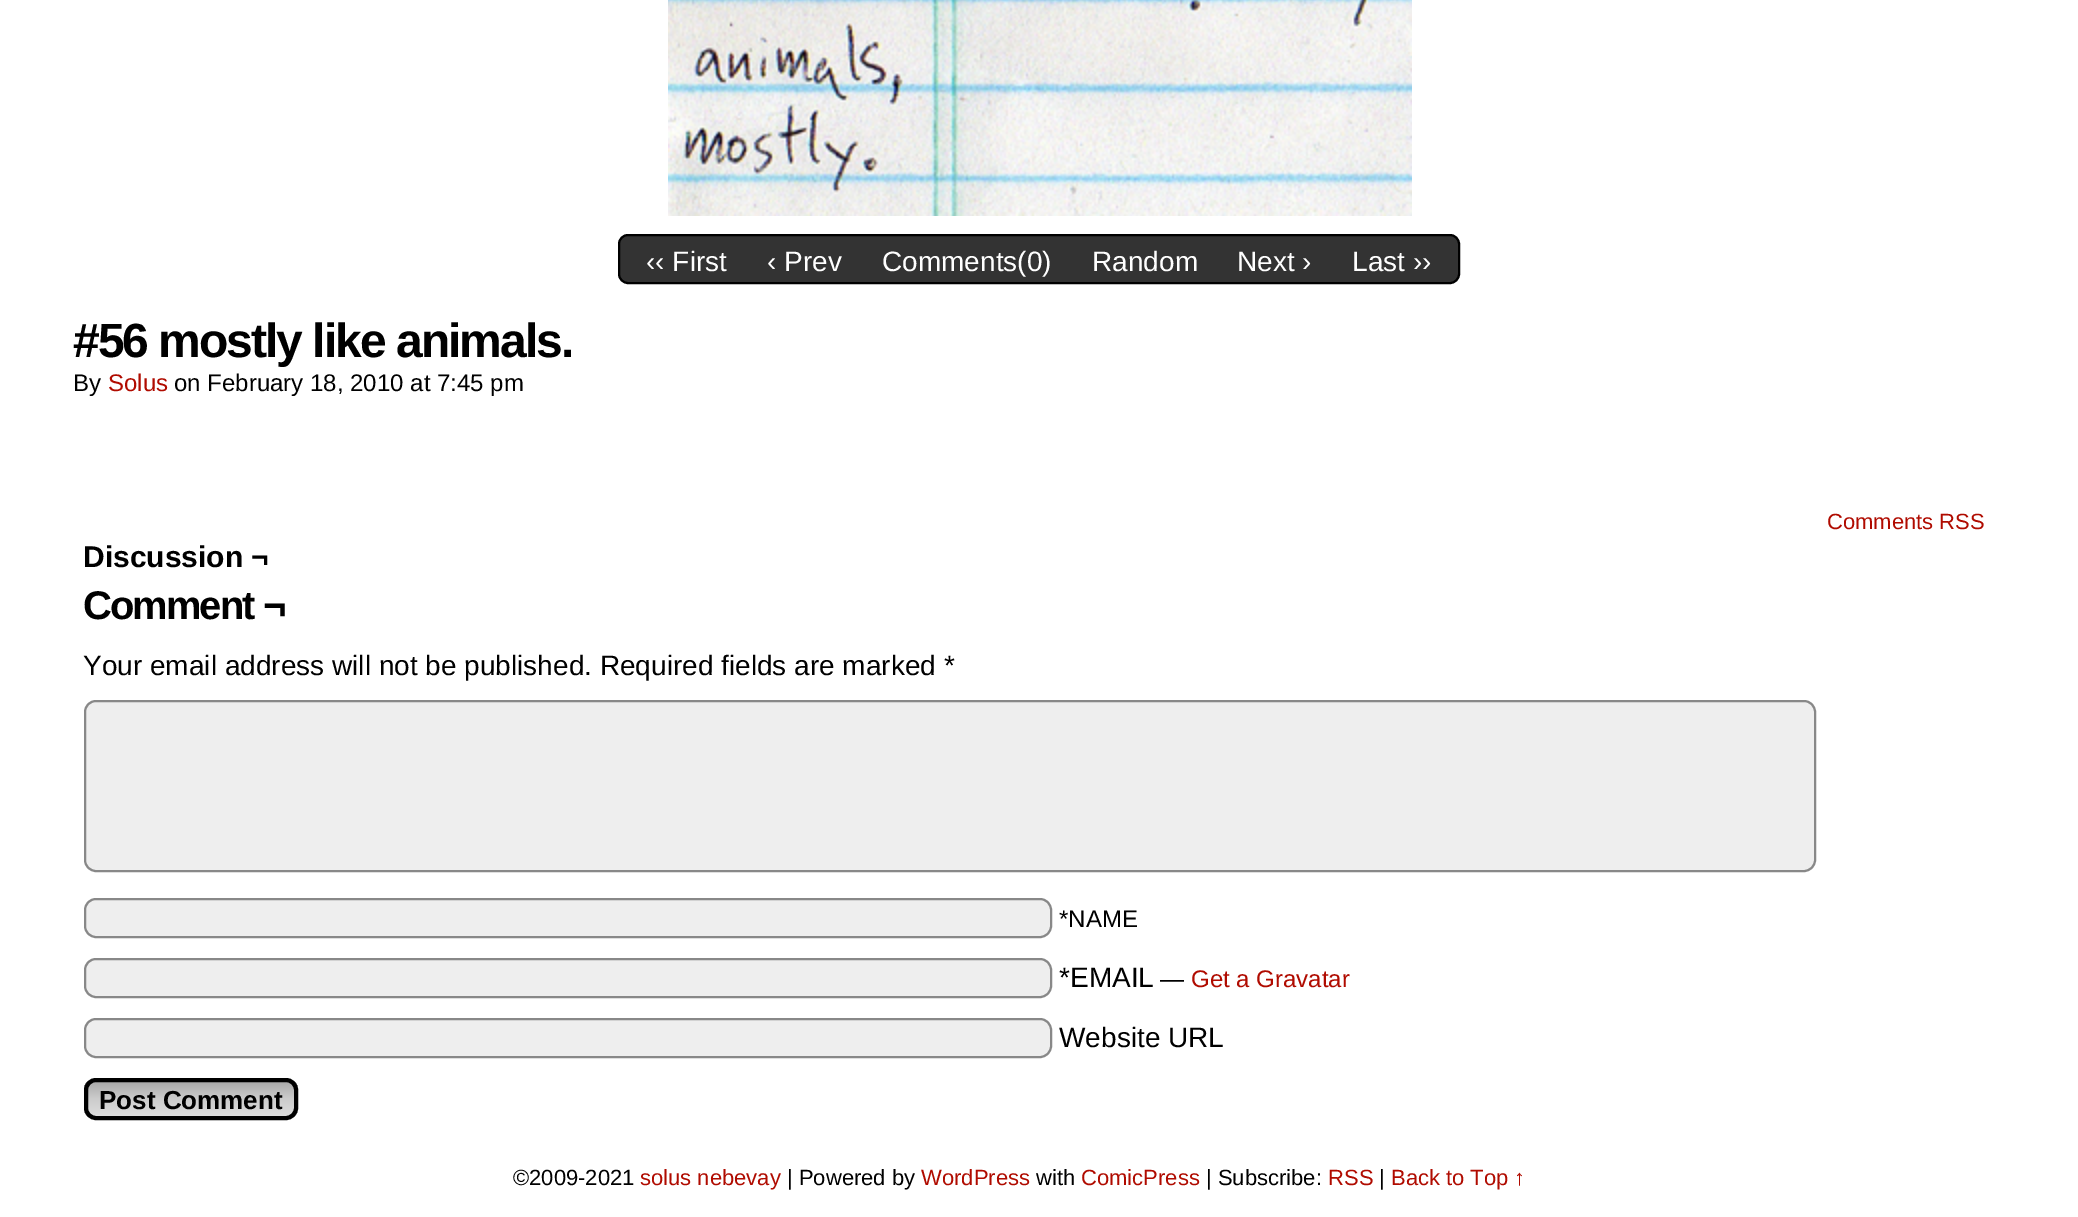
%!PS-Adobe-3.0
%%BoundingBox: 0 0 2078 1217
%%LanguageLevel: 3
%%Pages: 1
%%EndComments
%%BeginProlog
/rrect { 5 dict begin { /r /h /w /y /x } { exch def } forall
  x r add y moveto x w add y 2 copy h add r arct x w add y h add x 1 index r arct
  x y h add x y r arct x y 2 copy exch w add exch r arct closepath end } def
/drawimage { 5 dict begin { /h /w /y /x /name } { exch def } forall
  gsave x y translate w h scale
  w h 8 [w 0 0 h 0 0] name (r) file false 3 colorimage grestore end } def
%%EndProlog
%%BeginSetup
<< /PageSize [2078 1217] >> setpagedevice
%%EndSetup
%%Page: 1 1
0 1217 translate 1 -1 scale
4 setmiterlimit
1 setgray
0 0 2078 1217 rectfill
(images/1.raw) 668 0 744 216 drawimage
0.2 setgray
619 235 840 48 9 rrect gsave fill grestore
0 setgray
2 setlinewidth
stroke
0.933 setgray
85 701 1730 170 11 rrect gsave fill grestore
0.533 setgray
stroke
0.933 setgray
85 899 966 38 11 rrect gsave fill grestore
0.533 setgray
stroke
0.933 setgray
85 959 966 38 11 rrect gsave fill grestore
0.533 setgray
stroke
0.933 setgray
85 1019 966 38 11 rrect gsave fill grestore
0.533 setgray
stroke
gsave
84 1078 214 42 12 rrect clip newpath
gsave newpath 84 1082 moveto 298 1082 lineto 298 1116 lineto 84 1116 lineto closepath clip newpath
<< /ShadingType 2 /ColorSpace /DeviceRGB /Coords [191 1082 191 1116] /Extend [true true] /Function << /FunctionType 3 /Domain [0 1] /Functions [<< /FunctionType 2 /Domain [0 1] /C0 [0.667 0.667 0.667] /C1 [0.8 0.8 0.8] /N 1 >> << /FunctionType 2 /Domain [0 1] /C0 [0.8 0.8 0.8] /C1 [0.867 0.867 0.867] /N 1 >>] /Bounds [0.5] /Encode [0 1 0 1] >> >> shfill grestore
grestore
0 setgray
4 setlinewidth
86 1080 210 38 10 rrect stroke
/LiberationSans-Regular [28 0 0 -28 0 0] selectfont
1 setgray
646 271 moveto (‹‹ First) show
767 271 moveto (‹ Prev) show
882 271 moveto (Comments\(0\)) show
1092 271 moveto (Random) show
1237 271 moveto (Next ›) show
1352 271 moveto (Last ››) show
/LiberationSans-Bold [48 0 0 -48 0 0] selectfont
0 setgray
73 357 moveto -2 0 (#56 mostly like animals.) ashow
/LiberationSans-Regular [24 0 0 -24 0 0] selectfont
73 391 moveto (By) show
0.69 0.043 0 setrgbcolor
108 391 moveto (Solus) show
0 setgray
174 391 moveto (on February 18, 2010 at 7:45 pm) show
/LiberationSans-Regular [22 0 0 -22 0 0] selectfont
0.69 0.043 0 setrgbcolor
1827 529 moveto (Comments RSS) show
/LiberationSans-Bold [30 0 0 -30 0 0] selectfont
0 setgray
83 567 moveto (Discussion ¬) show
/LiberationSans-Bold [40 0 0 -40 0 0] selectfont
83 619 moveto -2 0 (Comment ¬) ashow
/LiberationSans-Regular [28 0 0 -28 0 0] selectfont
83 675 moveto (Your email address will not be published. Required fields are marked *) show
/LiberationSans-Regular [24 0 0 -24 0 0] selectfont
1059 927 moveto (*NAME) show
/LiberationSans-Regular [28 0 0 -28 0 0] selectfont
1059 987 moveto (*EMAIL) show
/LiberationSans-Regular [24 0 0 -24 0 0] selectfont
1160 987 moveto (—) show
0.69 0.043 0 setrgbcolor
1191 987 moveto (Get a Gravatar) show
/LiberationSans-Regular [28 0 0 -28 0 0] selectfont
0 setgray
1059 1047 moveto (Website URL) show
/LiberationSans-Bold [26 0 0 -26 0 0] selectfont
99 1109 moveto (Post Comment) show
/LiberationSans-Regular [22 0 0 -22 0 0] selectfont
513 1185 moveto (©2009-2021) show
0.69 0.043 0 setrgbcolor
640 1185 moveto (solus nebevay) show
0 setgray
787 1185 moveto (| Powered by) show
0.69 0.043 0 setrgbcolor
921 1185 moveto (WordPress) show
0 setgray
1036 1185 moveto (with) show
0.69 0.043 0 setrgbcolor
1081 1185 moveto (ComicPress) show
0 setgray
1206 1185 moveto (| Subscribe:) show
0.69 0.043 0 setrgbcolor
1328 1185 moveto (RSS) show
0 setgray
1379 1185 moveto (|) show
0.69 0.043 0 setrgbcolor
1391 1185 moveto (Back to Top ↑) show
showpage
%%EOF
